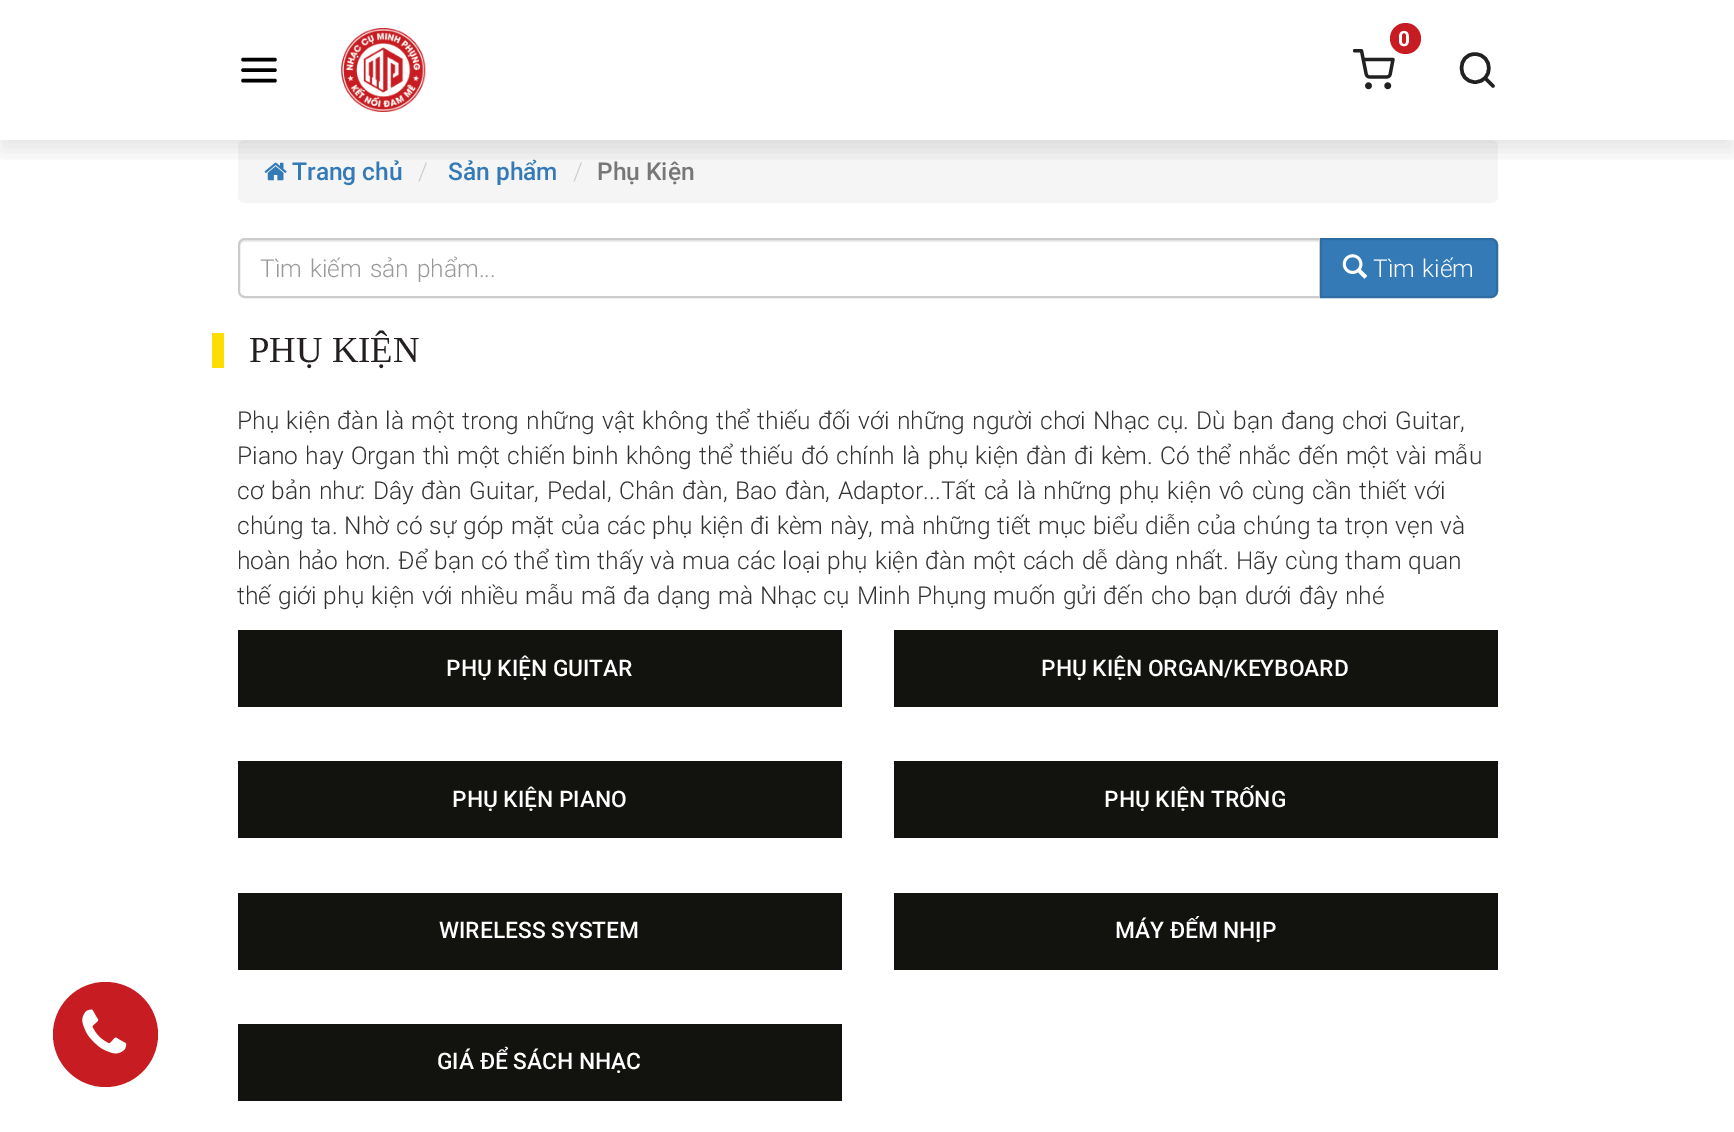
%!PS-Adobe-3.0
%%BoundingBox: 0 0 1734 1132
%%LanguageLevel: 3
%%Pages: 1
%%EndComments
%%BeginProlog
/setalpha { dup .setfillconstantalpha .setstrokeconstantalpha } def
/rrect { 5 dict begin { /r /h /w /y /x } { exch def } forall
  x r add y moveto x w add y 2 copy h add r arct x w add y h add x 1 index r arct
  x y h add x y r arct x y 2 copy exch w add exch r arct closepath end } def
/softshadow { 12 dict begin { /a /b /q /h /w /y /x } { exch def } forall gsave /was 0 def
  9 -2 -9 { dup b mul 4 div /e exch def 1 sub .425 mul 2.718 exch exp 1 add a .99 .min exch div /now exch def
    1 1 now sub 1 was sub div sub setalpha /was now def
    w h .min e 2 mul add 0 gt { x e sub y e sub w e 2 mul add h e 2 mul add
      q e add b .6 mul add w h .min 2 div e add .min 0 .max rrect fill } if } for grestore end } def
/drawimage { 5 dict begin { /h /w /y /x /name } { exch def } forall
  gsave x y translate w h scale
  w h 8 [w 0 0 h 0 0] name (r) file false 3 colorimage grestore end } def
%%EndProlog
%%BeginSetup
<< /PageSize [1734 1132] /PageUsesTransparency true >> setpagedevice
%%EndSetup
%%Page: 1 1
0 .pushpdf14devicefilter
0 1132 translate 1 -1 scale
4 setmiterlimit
1 setgray
0 0 1734 1132 rectfill
0.961 setgray
238 140 1260 63 7 rrect fill
(images/4.raw) 264 162 23 19 drawimage
gsave
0 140 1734 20 rectclip
0 setgray
0 11 1734 140 0 10.5 0.1 softshadow
grestore
0 setgray
3.5 setlinewidth
1 setlinecap
1 setlinejoin
newpath 243 70 moveto 275 70 lineto 243 59.5 moveto 275 59.5 lineto 243 80.5 moveto 275 80.5 lineto stroke
(images/1.raw) 341 28 85 84 drawimage
(images/2.raw) 1353 49 42 41 drawimage
0.78 0.114 0.133 setrgbcolor
newpath 1405.5 38.5 15.5 0 360 arc closepath fill
0.129 setgray
newpath 1475 82 moveto 1493.5 82 1493.5 54.5 1475 54 curveto 1457 54 1457 82 1475 82 curveto closepath 1493 86 moveto 1485 78 lineto stroke
0.78 0.114 0.133 setrgbcolor
newpath 105.5 1034.5 52.5 0 360 arc closepath fill
(images/3.raw) 82 1009 45 45 drawimage
0.925 setgray
newpath 245 242 moveto 1320 242 lineto 1320 240 lineto 245 240 lineto 242 240 240 242 240 245 curveto 240 247 lineto 240 244 242 242 245 242 curveto closepath fill
0.8 setgray
2 setlinewidth
0 setlinecap
0 setlinejoin
newpath 245 239 moveto 1320 239 lineto 1320 297 lineto 245 297 lineto 241.5 297 239 294.5 239 291 curveto 239 245 lineto 239 241.5 241.5 239 245 239 curveto closepath stroke
0.2 0.478 0.718 setrgbcolor
newpath 1321 239 moveto 1491 239 lineto 1494.5 239 1497 241.5 1497 245 curveto 1497 291 lineto 1497 294.5 1494.5 297 1491 297 curveto 1321 297 lineto closepath gsave fill grestore
0.18 0.427 0.643 setrgbcolor
stroke
(images/5.raw) 1342 254 26 25 drawimage
1 0.867 0 setrgbcolor
212 333 12 35 rectfill
0.071 0.071 0.059 setrgbcolor
238 630 604 77 rectfill
894 630 604 77 rectfill
238 761 604 77 rectfill
894 761 604 77 rectfill
238 893 604 77 rectfill
894 893 604 77 rectfill
238 1024 604 77 rectfill
/Roboto-Bold [21 0 0 -21 0 0] selectfont
1 setgray
1398 46 moveto (0) show
/Roboto-Medium [24.5 0 0 -24.5 0 0] selectfont
0.2 0.478 0.718 setrgbcolor
292 180 moveto (Trang chủ) show
/Roboto-Light [24.5 0 0 -24.5 0 0] selectfont
0.8 setgray
418 180 moveto (/) show
/Roboto-Medium [24.5 0 0 -24.5 0 0] selectfont
0.2 0.478 0.718 setrgbcolor
448 180 moveto (Sản phẩm) show
/Roboto-Light [24.5 0 0 -24.5 0 0] selectfont
0.8 setgray
573 180 moveto (/) show
/Roboto-Medium [24.5 0 0 -24.5 0 0] selectfont
0.467 setgray
597 180 moveto (Phụ Kiện) show
/Roboto-Light [24.5 0 0 -24.5 0 0] selectfont
0.6 setgray
260 277 moveto 2 0 32 (Tìm kiếm sản phẩm...) widthshow
1 setgray
1373 277 moveto 1.25 0 32 (Tìm kiếm) widthshow
/LiberationSerif-Regular [36.75 0 0 -36.75 0 0] selectfont
0.137 0.122 0.125 setrgbcolor
249 362 moveto (PHỤ KIỆN) show
/Roboto-Light [24.5 0 0 -24.5 0 0] selectfont
0.2 setgray
237 429 moveto 1.4 0 32 (Phụ kiện đàn là một trong những vật không thể thiếu đối với những người chơi Nhạc cụ. Dù bạn đang chơi Guitar,) widthshow
237 464 moveto 1.25 0 32 (Piano hay Organ thì một chiến binh không thể thiếu) widthshow
801 464 moveto 1.25 0 32 (đó chính là phụ kiện đàn đi kèm. Có thể nhắc đến một vài mẫu) widthshow
237 499 moveto 1.6 0 32 (cơ bản như: Dây đàn Guitar, Pedal, Chân đàn, Bao đàn, Adaptor...Tất cả là những phụ kiện vô cùng cần thiết với) widthshow
237 534 moveto 1 0 32 (chúng ta. Nhờ có sự góp mặt của các phụ kiện đi kèm này, mà những tiết mục biểu diễn của chúng ta trọn vẹn và) widthshow
237 569 moveto 0.9 0 32 (hoàn hảo hơn. Để bạn có thể tìm thấy và mua các loại phụ kiện đàn một cách dễ dàng nhất. Hãy cùng tham quan) widthshow
237 604 moveto 1.1 0 32 (thế giới phụ kiện với nhiều mẫu mã đa dạng mà Nhạc cụ Minh Phụng muốn gửi đến cho bạn dưới đây nhé) widthshow
/Roboto-Medium [22.75 0 0 -22.75 0 0] selectfont
1 setgray
446 676 moveto (PHỤ KIỆN GUITAR) show
1041 676 moveto (PHỤ KIỆN ORGAN/KEYBOARD) show
452 807 moveto (PHỤ KIỆN PIANO) show
1104 807 moveto (PHỤ KIỆN TRỐNG) show
439 938 moveto (WIRELESS SYSTEM) show
1115 938 moveto (MÁY ĐẾM NHỊP) show
437 1069 moveto (GIÁ ĐỂ SÁCH NHẠC) show
.poppdf14devicefilter showpage
%%EOF
